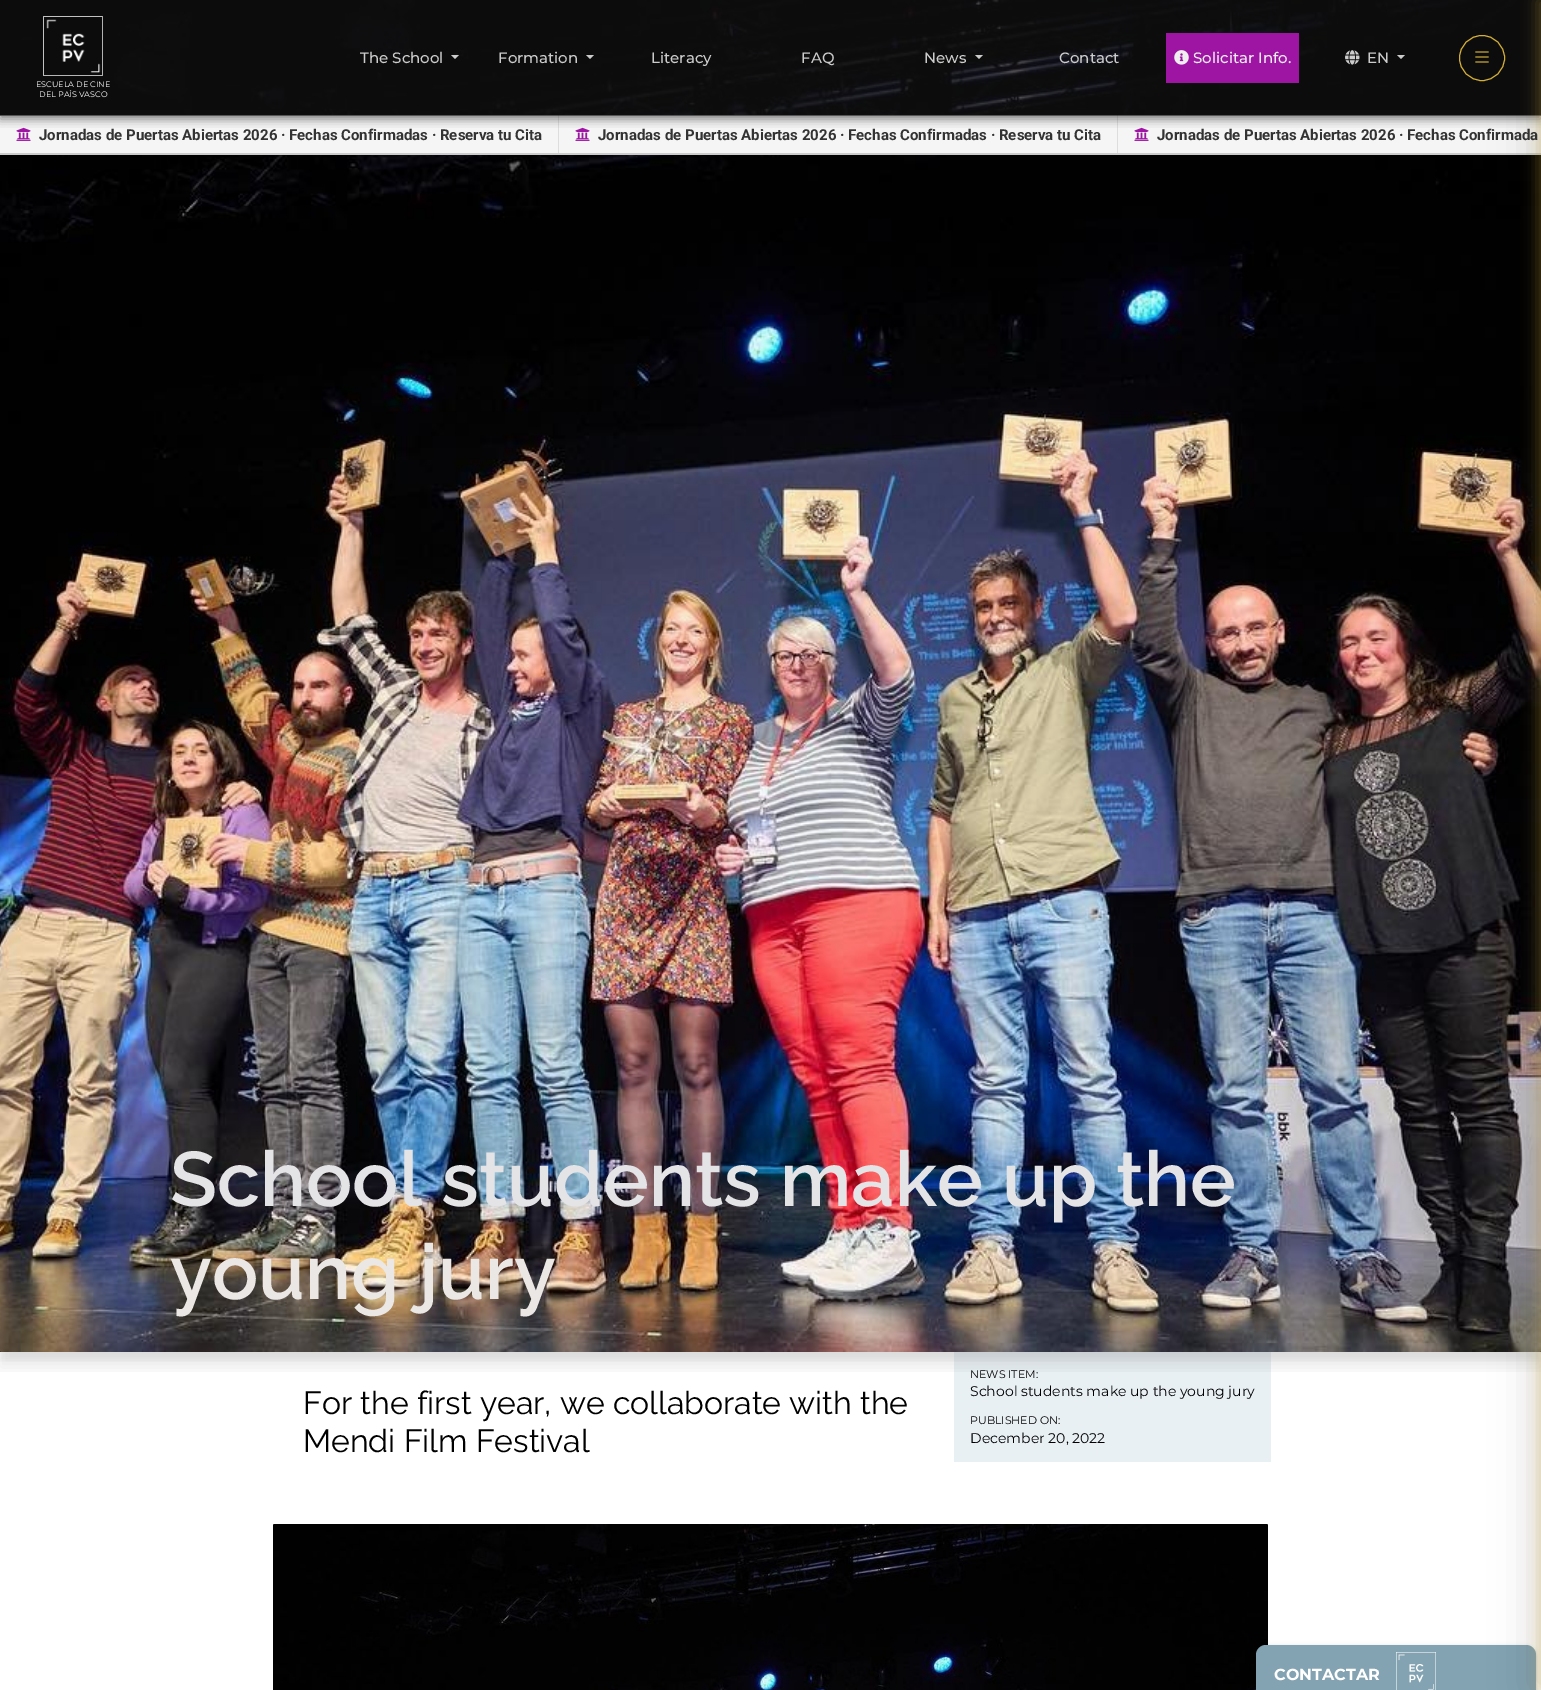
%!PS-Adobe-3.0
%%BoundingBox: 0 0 1541 1690
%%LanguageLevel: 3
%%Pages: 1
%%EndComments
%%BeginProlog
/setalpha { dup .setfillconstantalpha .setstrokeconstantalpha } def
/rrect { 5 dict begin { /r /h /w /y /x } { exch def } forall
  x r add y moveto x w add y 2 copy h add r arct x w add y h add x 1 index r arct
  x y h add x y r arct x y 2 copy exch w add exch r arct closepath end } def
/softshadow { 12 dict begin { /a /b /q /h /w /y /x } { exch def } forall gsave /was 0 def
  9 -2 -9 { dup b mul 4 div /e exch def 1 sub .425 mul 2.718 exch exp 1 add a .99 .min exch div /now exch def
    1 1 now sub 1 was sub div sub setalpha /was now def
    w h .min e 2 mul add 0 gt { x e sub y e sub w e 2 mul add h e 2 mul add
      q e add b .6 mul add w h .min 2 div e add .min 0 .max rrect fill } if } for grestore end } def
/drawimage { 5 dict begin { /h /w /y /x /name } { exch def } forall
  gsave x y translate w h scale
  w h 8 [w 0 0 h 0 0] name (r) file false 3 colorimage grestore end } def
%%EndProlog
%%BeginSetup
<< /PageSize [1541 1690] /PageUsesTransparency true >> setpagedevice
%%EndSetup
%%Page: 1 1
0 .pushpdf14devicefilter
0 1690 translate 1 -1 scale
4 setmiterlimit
1 setgray
0 0 1541 1690 rectfill
0.914 0.941 0.957 setrgbcolor
954 1352 317 110 rectfill
gsave
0 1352 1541 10 rectclip
0 setgray
0 8 1541 1352 0 4 0.06 softshadow
grestore
gsave
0 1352 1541 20 rectclip
0 setgray
0 15 1541 1352 0 7.5 0.08 softshadow
grestore
(images/6.raw) 0 0 1541 1352 drawimage
0 setgray
0 117 1541 40 0 3 0.1 softshadow
0.961 setgray
0 115 1541 38 rectfill
0.867 setgray
558 115 1 38 rectfill
(images/5.raw) 16 127 15 14 drawimage
1117 115 1 38 rectfill
(images/5.raw) 575 127 15 14 drawimage
(images/5.raw) 1134 127 15 14 drawimage
gsave
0 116 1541 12 rectclip
0 setgray
0 3 1541 116 0 5 0.5 softshadow
grestore
0.7 setalpha
0.067 setgray
0 0 1541 116 rectfill
1 setalpha
0.831 0.686 0.216 setrgbcolor
newpath 1482 58 22.5 0 360 arc closepath stroke
(images/3.raw) 1475 51 14 12 drawimage
0.8 setgray
0 153 1541 2 rectfill
(images/7.raw) 273 1524 995 166 drawimage
0 setgray
1256 1646 280 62 10 2.5 0.12 softshadow
1256 1647 280 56 10 1 0.14 softshadow
0.514 0.639 0.698 setrgbcolor
newpath 1266 1645 moveto 1526 1645 lineto 1531.5 1645 1536 1649.5 1536 1655 curveto 1536 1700 lineto 1256 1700 lineto 1256 1655 lineto 1256 1649.5 1260.5 1645 1266 1645 curveto closepath fill
0 setgray
1531 0 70 1690 0 20 0.12 softshadow
0.8 setgray
newpath 451 55 moveto 459 55 lineto 455 59 lineto closepath fill
newpath 586 55 moveto 594 55 lineto 590 59 lineto closepath fill
newpath 975 55 moveto 983 55 lineto 979 59 lineto closepath fill
0.62 0.082 0.639 setrgbcolor
1166 33 133 50 rectfill
(images/1.raw) 1174 50 15 15 drawimage
(images/2.raw) 1345 50 15 15 drawimage
0.8 setgray
newpath 1397 55 moveto 1405 55 lineto 1401 59 lineto closepath fill
(images/4.raw) 43 16 60 60 drawimage
0.831 0.686 0.216 setrgbcolor
1537 0 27 1690 0 7.5 0.3 softshadow
(images/8.raw) 1396 1652 40 38 drawimage
/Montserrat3-Thin [15 0 0 -15 0 0] selectfont
0.8 setgray
360 63 moveto (The School) show
498 63 moveto (Formation) show
651 63 moveto (Literacy) show
801 63 moveto (FAQ) show
924 63 moveto (News) show
1059 63 moveto (Contact) show
0.937 setgray
1193 63 moveto (Solicitar Info.) show
0.8 setgray
1367 63 moveto (EN) show
/Montserrat-Thin [8 0 0 -8 0 0] selectfont
1 setgray
36 87 moveto (ESCUELA DE CINE) show
39 97 moveto (DEL PAÍS VASCO) show
/Roboto-Bold [15 0 0 -15 0 0] selectfont
0.2 setgray
39 140 moveto (Jornadas de Puertas Abiertas 2026 · Fechas Confirmadas · Reserva tu Cita) show
598 140 moveto (Jornadas de Puertas Abiertas 2026 · Fechas Confirmadas · Reserva tu Cita) show
1157 140 moveto (Jornadas de Puertas Abiertas 2026 · Fechas Confirmada) show
/Raleway-SemiBold [77 0 0 -77 0 0] selectfont
0.894 0.89 0.902 setrgbcolor
170 1206 moveto (School students make up the) show
0.918 0.906 0.898 setrgbcolor
170 1299 moveto (young jury) show
/Raleway-Regular [32 0 0 -32 0 0] selectfont
0 setgray
303 1414 moveto (For the first year, we collaborate with the) show
303 1452 moveto (Mendi Film Festival) show
/Montserrat-Thin [11 0 0 -11 0 0] selectfont
970 1378 moveto (NEWS ITEM:) show
/Montserrat-Thin [14 0 0 -14 0 0] selectfont
970 1396 moveto (School students make up the young jury) show
/Montserrat-Thin [11 0 0 -11 0 0] selectfont
970 1424 moveto (PUBLISHED ON:) show
/Montserrat-Thin [14 0 0 -14 0 0] selectfont
970 1443 moveto (December 20, 2022) show
/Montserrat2-Thin [16 0 0 -16 0 0] selectfont
1 setgray
1274 1680 moveto (CONTACTAR) show
.poppdf14devicefilter showpage
%%EOF
